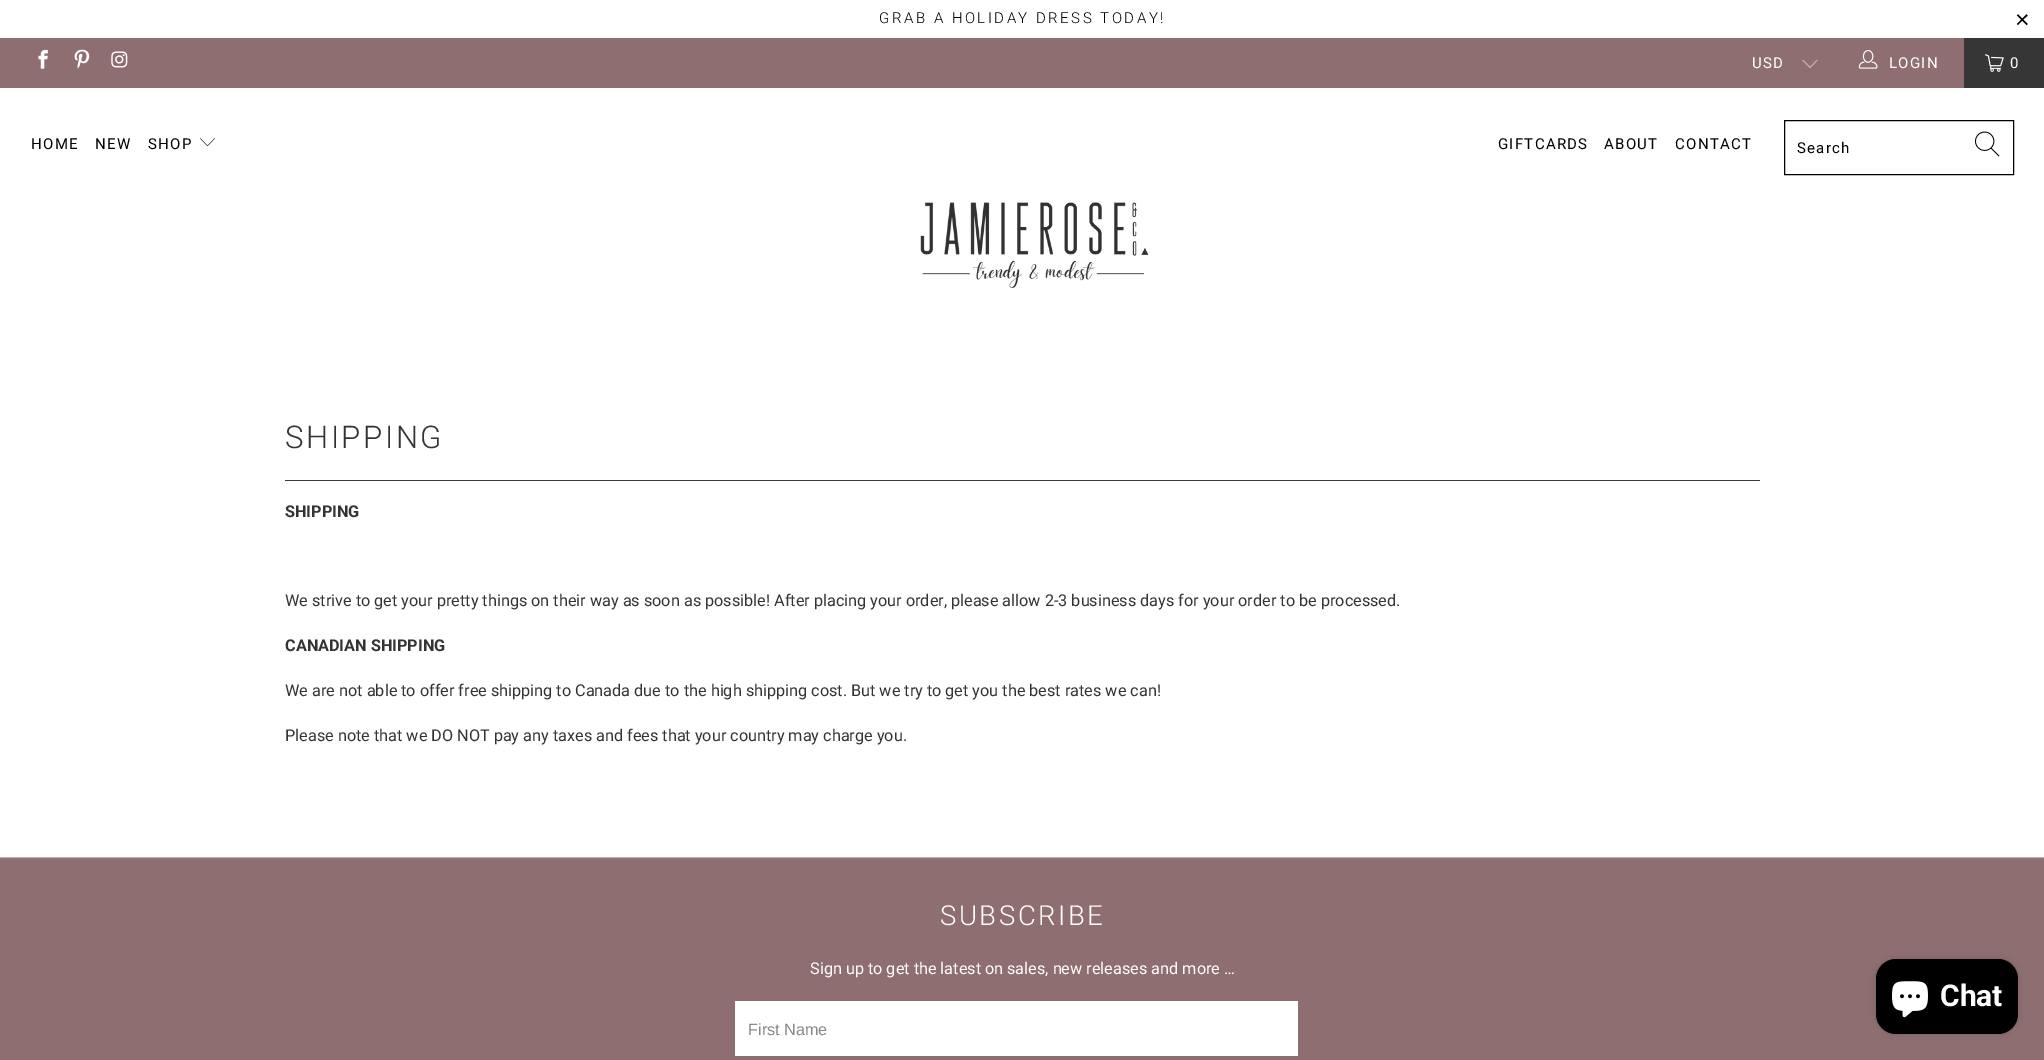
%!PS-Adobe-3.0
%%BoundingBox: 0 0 2044 1060
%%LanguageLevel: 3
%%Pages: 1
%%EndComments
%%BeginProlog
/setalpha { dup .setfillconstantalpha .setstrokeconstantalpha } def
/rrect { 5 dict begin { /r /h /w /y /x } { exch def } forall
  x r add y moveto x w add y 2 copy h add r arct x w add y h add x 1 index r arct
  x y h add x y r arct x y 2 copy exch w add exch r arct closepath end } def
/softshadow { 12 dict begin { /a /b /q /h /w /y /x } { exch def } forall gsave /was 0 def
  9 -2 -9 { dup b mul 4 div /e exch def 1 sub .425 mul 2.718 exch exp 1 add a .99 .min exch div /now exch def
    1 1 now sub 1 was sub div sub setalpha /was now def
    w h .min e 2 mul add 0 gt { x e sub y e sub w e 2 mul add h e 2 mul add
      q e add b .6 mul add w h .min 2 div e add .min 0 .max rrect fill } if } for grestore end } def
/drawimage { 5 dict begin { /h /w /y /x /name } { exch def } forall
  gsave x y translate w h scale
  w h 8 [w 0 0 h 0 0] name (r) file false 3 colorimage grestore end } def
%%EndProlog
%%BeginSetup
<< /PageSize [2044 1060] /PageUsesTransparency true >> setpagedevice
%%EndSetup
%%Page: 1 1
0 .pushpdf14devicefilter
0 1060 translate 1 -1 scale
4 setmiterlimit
1 setgray
0 0 2044 1060 rectfill
0.557 0.431 0.439 setrgbcolor
0 38 1964 50 rectfill
(images/1.raw) 38 49 10 20 drawimage
(images/2.raw) 74 49 16 20 drawimage
(images/3.raw) 111 51 17 17 drawimage
(images/4.raw) 1802 59 16 9 drawimage
(images/5.raw) 1858 49 20 20 drawimage
0.212 setgray
1964 38 80 50 rectfill
(images/6.raw) 1985 54 19 18 drawimage
(images/7.raw) 200 138 15 9 drawimage
0 setgray
1784.5 120.5 229 54 rectstroke
(images/8.raw) 1975 131 25 26 drawimage
(images/9.raw) 920 202 229 86 drawimage
0.22 setgray
285 480 1475 1 rectfill
(images/10.raw) 0 857 2044 203 drawimage
1 setgray
735 1001 563 55 rectfill
0 setgray
1876 959 142 75 20 3 0.15 softshadow
1876 959 142 75 20 rrect fill
(images/11.raw) 1892 981 36 37 drawimage
/Roboto-Light [15 0 0 -15 0 0] selectfont
879 23 moveto 2.5 0 (GRAB A HOLIDAY DRESS TODAY!) ashow
/LiberationSans-Regular [25 0 0 -25 0 0] selectfont
2015 28 moveto 2.5 0 (×) ashow
/Roboto-Regular [15 0 0 -15 0 0] selectfont
1 setgray
1752 68 moveto 1.25 0 (USD) ashow
1889 68 moveto 1.25 0 (LOGIN) ashow
2010 68 moveto 1.25 0 (0) ashow
0 setgray
31 149 moveto 1.25 0 (HOME) ashow
95 149 moveto 1.25 0 (NEW) ashow
148 149 moveto 1.25 0 (SHOP) ashow
1498 149 moveto 1.25 0 (GIFTCARDS) ashow
1604 149 moveto 1.25 0 (ABOUT) ashow
1675 149 moveto 1.25 0 (CONTACT) ashow
1797 153 moveto 1.25 0 (Search) ashow
/Roboto-Light [31.25 0 0 -31.25 0 0] selectfont
0.2 setgray
285 448 moveto 2.5 0 (SHIPPING) ashow
/Roboto-Bold [16.25 0 0 -16.25 0 0] selectfont
285 517 moveto (SHIPPING) show
/Roboto-Regular [16.25 0 0 -16.25 0 0] selectfont
285 606 moveto (We strive to get your pretty things on their way as soon as possible! After placing your order, please allow 2-3 business days for your order to be processed.) show
/Roboto-Bold [16.25 0 0 -16.25 0 0] selectfont
285 651 moveto (CANADIAN SHIPPING) show
/Roboto-Regular [16.25 0 0 -16.25 0 0] selectfont
285 696 moveto (We are not able to offer free shipping to Canada due to the high shipping cost. But we try to get you the best rates we can!) show
285 741 moveto (Please note that we DO NOT pay any taxes and fees that your country may charge you.) show
/Roboto-Light [27.5 0 0 -27.5 0 0] selectfont
1 setgray
940 925 moveto 2.5 0 (SUBSCRIBE) ashow
/Roboto-Regular [16.25 0 0 -16.25 0 0] selectfont
810 974 moveto (Sign up to get the latest on sales, new releases and more …) show
/LiberationSans-Regular [16.25 0 0 -16.25 0 0] selectfont
0.533 setgray
748 1035 moveto (First Name) show
/Roboto-Bold [30 0 0 -30 0 0] selectfont
1 setgray
1940 1006 moveto (Chat) show
.poppdf14devicefilter showpage
%%EOF
